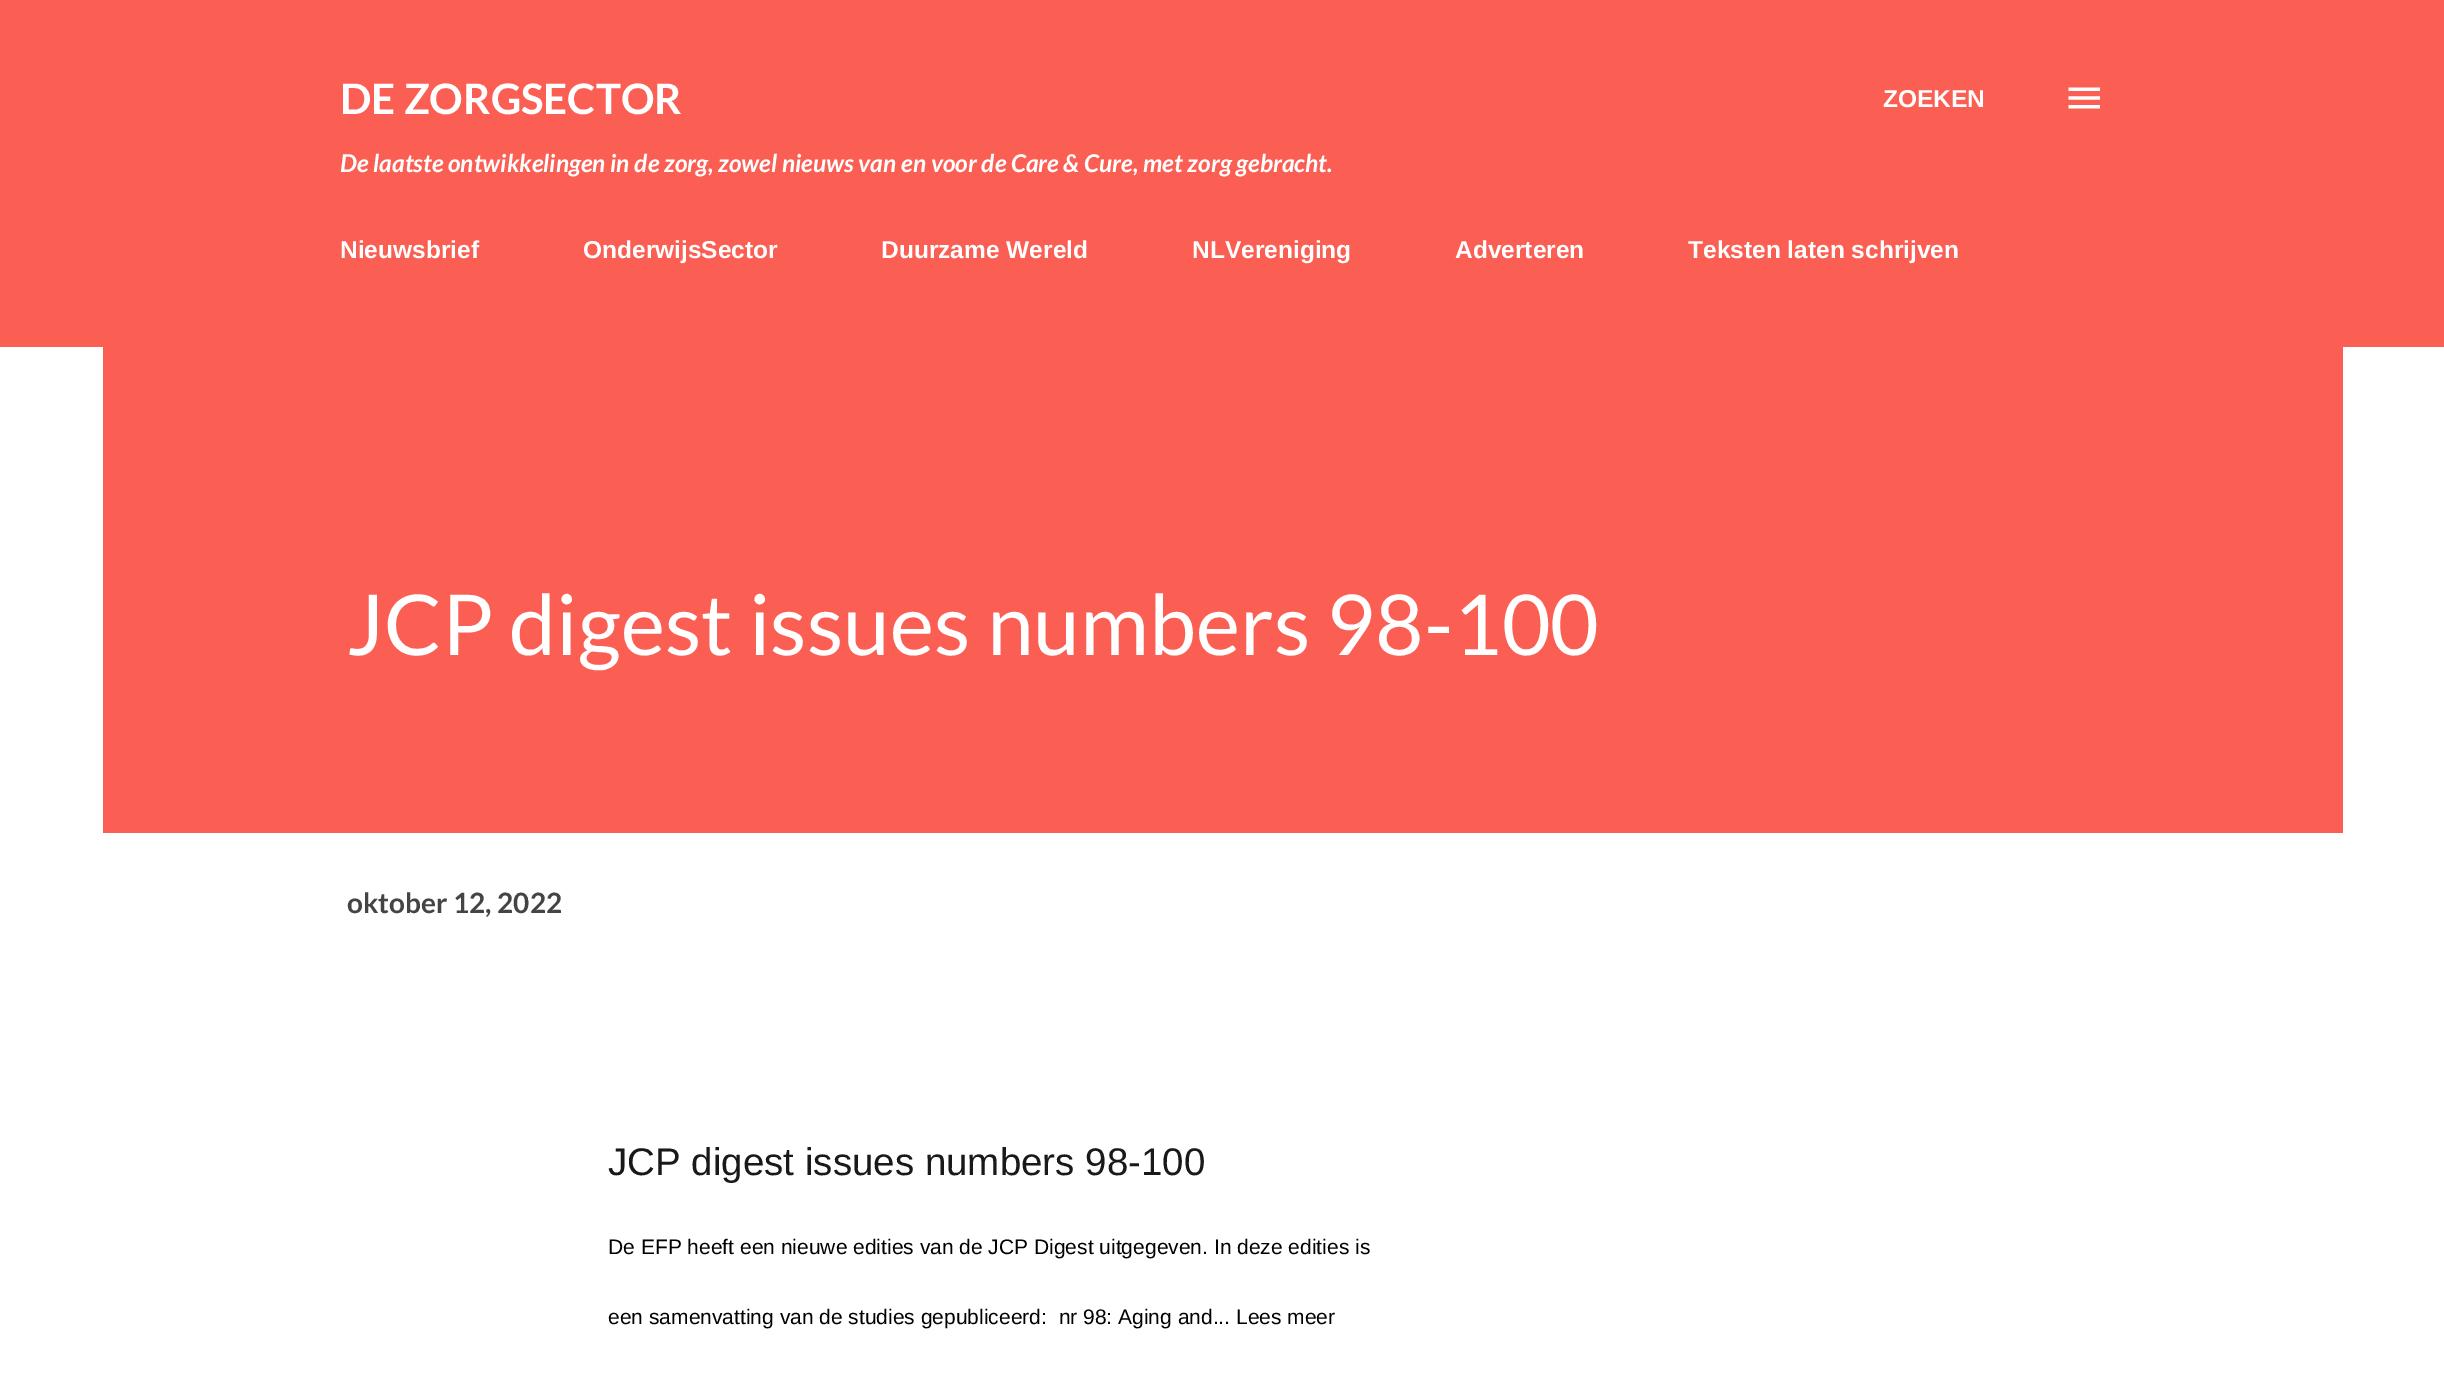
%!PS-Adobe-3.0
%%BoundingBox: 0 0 2444 1378
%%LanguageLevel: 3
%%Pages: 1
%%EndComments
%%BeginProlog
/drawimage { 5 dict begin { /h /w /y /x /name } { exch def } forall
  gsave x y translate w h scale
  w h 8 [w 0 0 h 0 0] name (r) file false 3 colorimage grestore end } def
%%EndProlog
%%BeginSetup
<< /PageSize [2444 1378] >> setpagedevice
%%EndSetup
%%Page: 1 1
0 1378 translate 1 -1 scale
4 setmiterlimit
1 setgray
0 0 2444 1378 rectfill
0.984 0.369 0.325 setrgbcolor
0 0 2444 347 rectfill
(images/1.raw) 2068 87 32 22 drawimage
103 347 2240 486 rectfill
/Lato-Bold [42 0 0 -42 0 0] selectfont
1 setgray
340 114 moveto (DE ZORGSECTOR) show
/Lato-BoldItalic [24.5 0 0 -24.5 0 0] selectfont
340 172 moveto (De laatste ontwikkelingen in de zorg, zowel nieuws van en voor de Care & Cure, met zorg gebracht.) show
/LiberationSans-Bold [24.5 0 0 -24.5 0 0] selectfont
1883 107 moveto (ZOEKEN) show
340 258 moveto (Nieuwsbrief) show
583 258 moveto (OnderwijsSector) show
881 258 moveto (Duurzame Wereld) show
1192 258 moveto (NLVereniging) show
1455 258 moveto (Adverteren) show
1688 258 moveto (Teksten laten schrijven) show
/Lato-Regular [84 0 0 -84 0 0] selectfont
347 655 moveto (JCP digest issues numbers 98-100) show
/Lato-Bold [28 0 0 -28 0 0] selectfont
0.267 setgray
347 913 moveto (oktober 12, 2022) show
/LiberationSans-Regular [38.5 0 0 -38.5 0 0] selectfont
0.098 setgray
608 1175 moveto (JCP digest issues numbers 98-100) show
/LiberationSans-Regular [21 0 0 -21 0 0] selectfont
0 setgray
608 1254 moveto (De EFP heeft een nieuwe edities van de JCP Digest uitgegeven. In deze edities is) show
608 1324 moveto (een samenvatting van de studies gepubliceerd:  nr 98: Aging and... Lees meer) show
showpage
%%EOF
